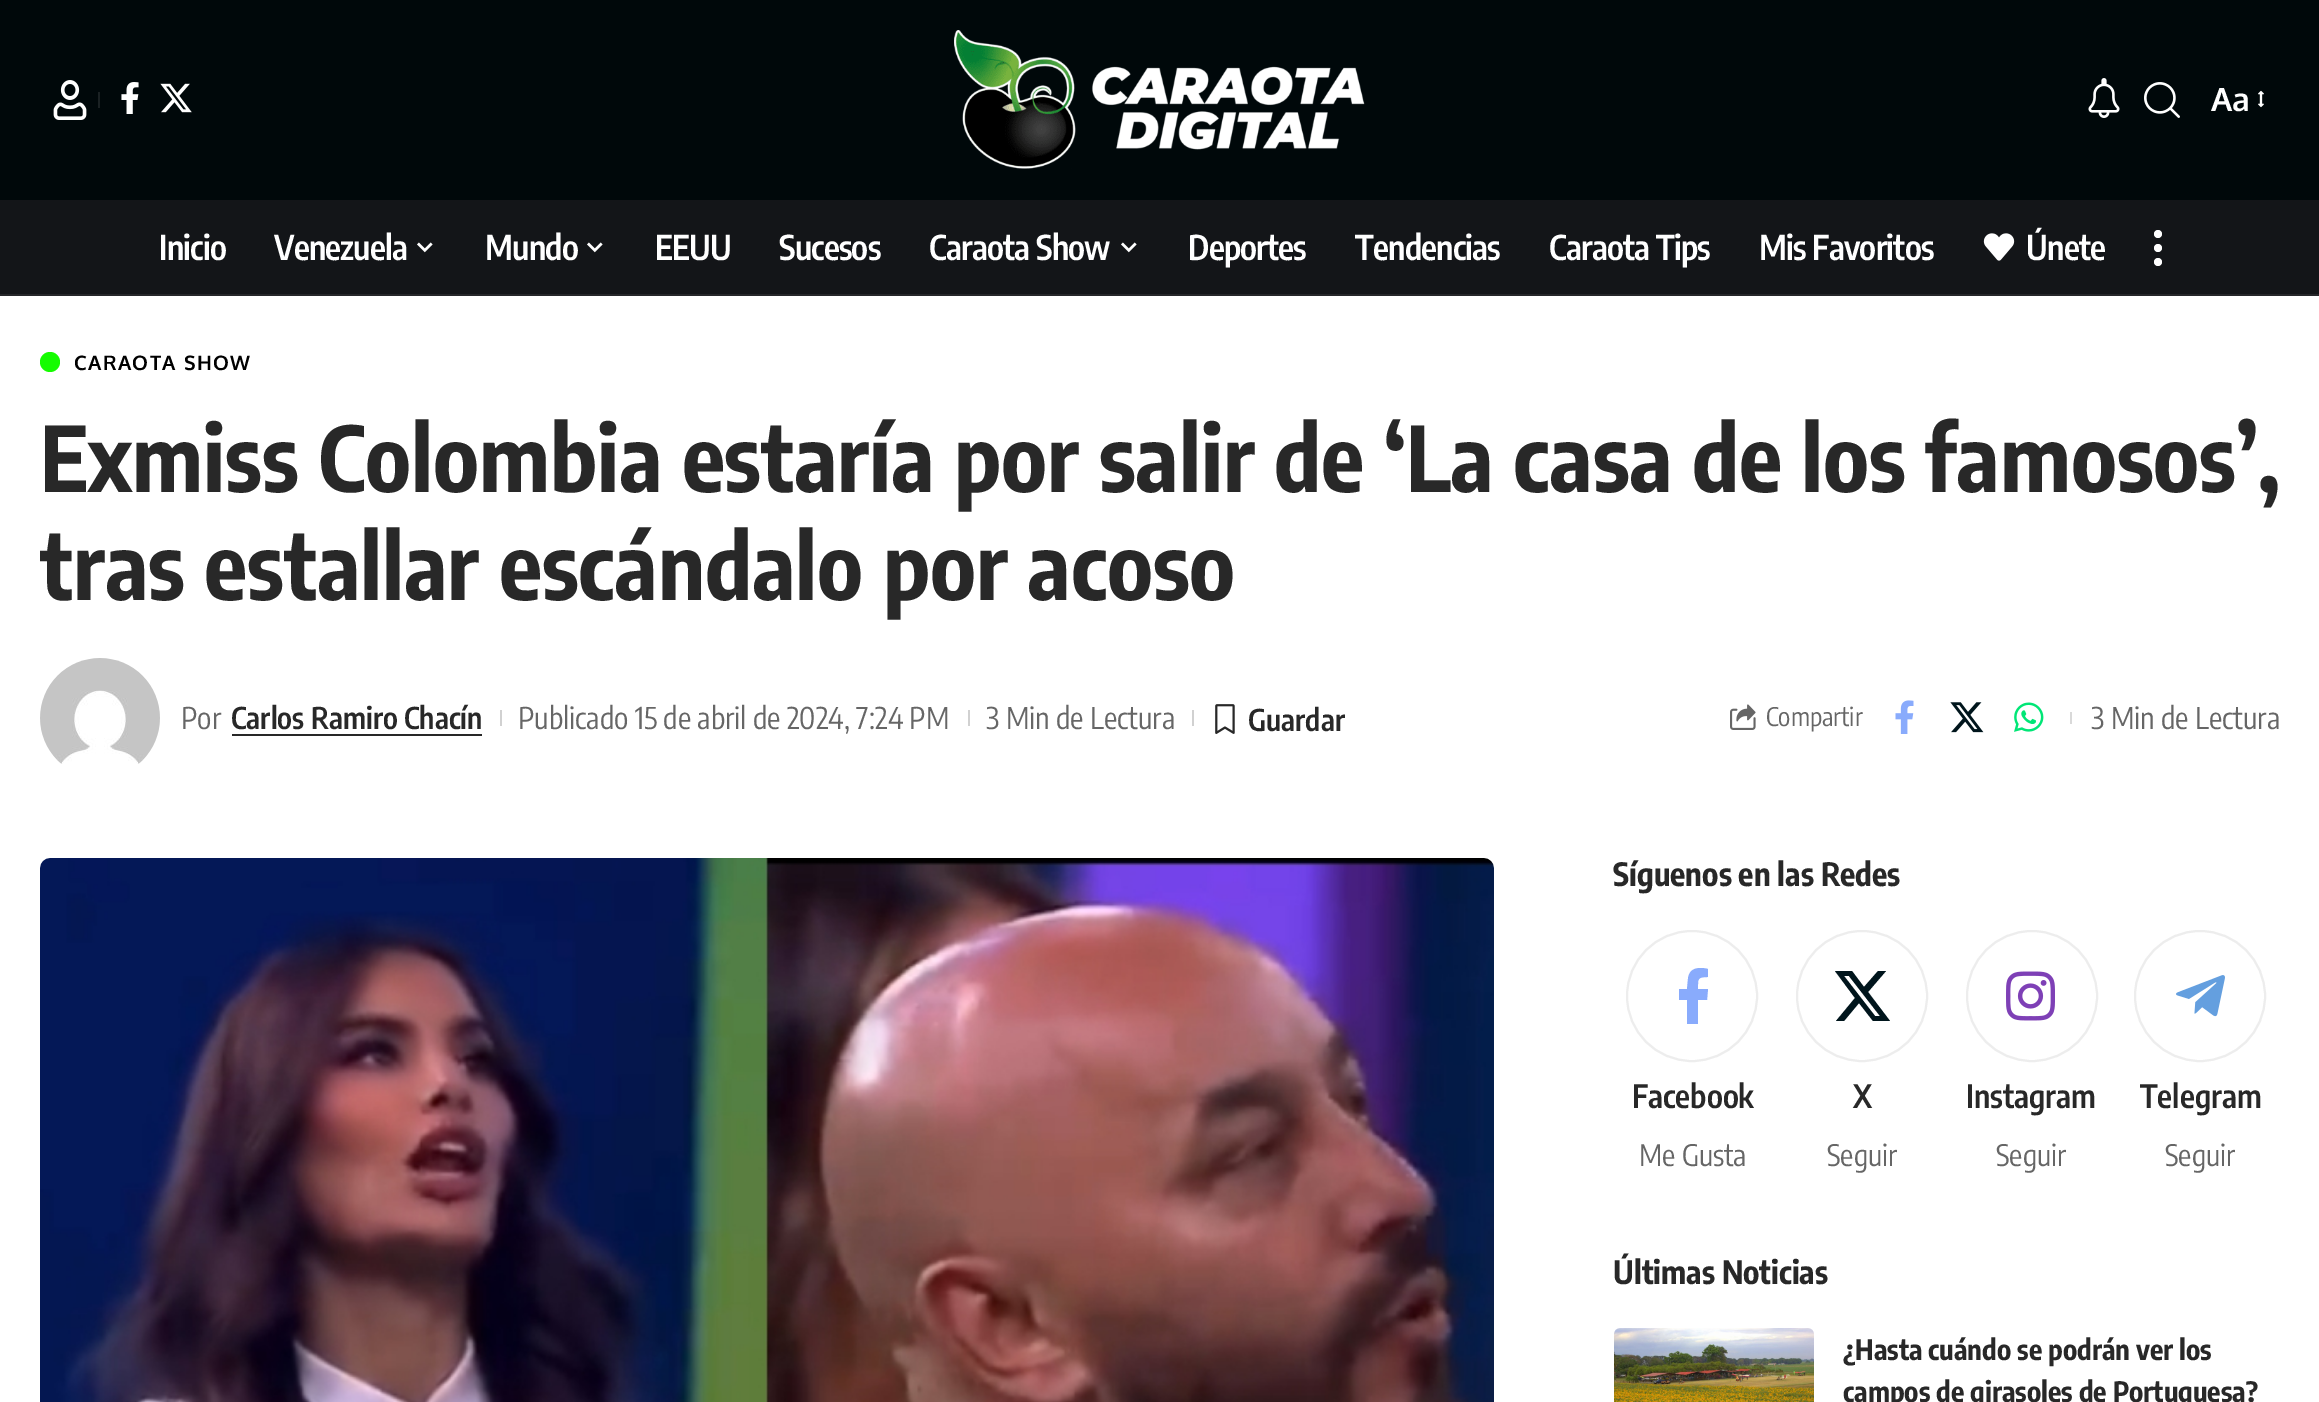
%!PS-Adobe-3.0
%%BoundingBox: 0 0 2319 1402
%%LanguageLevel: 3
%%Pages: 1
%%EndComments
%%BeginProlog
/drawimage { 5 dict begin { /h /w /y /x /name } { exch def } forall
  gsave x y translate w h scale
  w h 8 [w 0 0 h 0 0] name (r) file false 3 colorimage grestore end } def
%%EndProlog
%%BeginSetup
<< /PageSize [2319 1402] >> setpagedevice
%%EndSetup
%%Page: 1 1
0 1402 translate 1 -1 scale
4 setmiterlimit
1 setgray
0 0 2319 1402 rectfill
0 0.031 0.039 setrgbcolor
0 0 2319 200 rectfill
(images/1.raw) 53 80 34 40 drawimage
0.102 0.129 0.137 setrgbcolor
98 92 2 16 rectfill
(images/2.raw) 121 82 18 32 drawimage
(images/3.raw) 160 83 32 30 drawimage
(images/4.raw) 954 30 411 139 drawimage
(images/5.raw) 2088 78 32 40 drawimage
(images/6.raw) 2144 82 36 36 drawimage
(images/7.raw) 2258 90 6 18 drawimage
0.075 0.082 0.094 setrgbcolor
0 200 2319 94 rectfill
(images/8.raw) 417 242 16 11 drawimage
(images/8.raw) 587 242 16 11 drawimage
(images/8.raw) 1121 242 16 11 drawimage
(images/9.raw) 1983 233 32 28 drawimage
1 setgray
newpath 2158 234 4 0 360 arc closepath fill
newpath 2158 248 4 0 360 arc closepath fill
newpath 2158 262 4 0 360 arc closepath fill
0.145 0.149 0.161 setrgbcolor
0 294 2319 2 rectfill
0.082 0.988 0 setrgbcolor
newpath 50 362 10 0 360 arc closepath fill
(images/10.raw) 40 658 120 106 drawimage
0.157 setgray
232 734 250 2 rectfill
0.82 setgray
500 710 2 16 rectfill
968 710 2 16 rectfill
1192 710 2 16 rectfill
(images/11.raw) 1215 704 20 30 drawimage
(images/12.raw) 1730 704 26 26 drawimage
(images/13.raw) 1895 700 19 34 drawimage
(images/14.raw) 1950 702 34 31 drawimage
(images/15.raw) 2014 702 30 30 drawimage
0.851 setgray
2070 712 2 12 rectfill
(images/16.raw) 40 858 1454 544 drawimage
0.929 setgray
2 setlinewidth
newpath 1692 996 65 0 360 arc closepath stroke
0.537 0.671 0.988 setrgbcolor
newpath 1707 1000 moveto 1708 989 lineto 1698 989 lineto 1698 979 1697 977 1708 977 curveto 1708 969 lineto 1700 967 1689 967 1688 979 curveto 1687 989 lineto 1679 989 lineto 1679 1000 lineto 1687 1000 lineto 1687 1024 lineto 1698 1024 lineto 1698 1000 lineto closepath fill
0.929 setgray
newpath 1862 996 65 0 360 arc closepath stroke
0 0.082 0.11 setrgbcolor
newpath 1878 971 moveto 1886 971 lineto 1868 992 lineto 1890 1021 lineto 1873 1021 lineto 1859 1003 lineto 1844 1021 lineto 1836 1021 lineto 1855 998 lineto 1835 971 lineto 1852 971 lineto 1864 987 lineto closepath 1875 1016 moveto 1880 1016 lineto 1849 976 lineto 1844 976 lineto closepath fill
0.929 setgray
newpath 2032 996 65 0 360 arc closepath stroke
(images/17.raw) 2006 971 49 50 drawimage
newpath 2200 996 65 0 360 arc closepath stroke
(images/18.raw) 2176 975 49 42 drawimage
(images/19.raw) 1614 1328 200 74 drawimage
/Oxygen-Bold [32 0 0 -32 0 0] selectfont
1 setgray
2211 111 moveto (Aa) show
/EncodeSansCondensed-SemiBold [34 0 0 -34 0 0] selectfont
159 260 moveto -0.75 0 (Inicio) ashow
274 260 moveto -0.75 0 (Venezuela) ashow
485 260 moveto -0.75 0 (Mundo) ashow
655 260 moveto -0.75 0 (EEUU) ashow
779 260 moveto -0.75 0 (Sucesos) ashow
929 260 moveto -0.75 0 (Caraota Show) ashow
1188 260 moveto -0.75 0 (Deportes) ashow
1355 260 moveto -0.75 0 (Tendencias) ashow
1549 260 moveto -0.75 0 (Caraota Tips) ashow
1759 260 moveto -0.75 0 (Mis Favoritos) ashow
2026 260 moveto -0.75 0 (Únete) ashow
/Oxygen-Bold [20 0 0 -20 0 0] selectfont
0 setgray
74 370 moveto 1.4 0 (CARAOTA SHOW) ashow
/EncodeSansCondensed-Bold [90 0 0 -90 0 0] selectfont
0.157 setgray
40 492 moveto (Exmiss Colombia estaría por salir de ‘La casa de los famosos’,) show
40 600 moveto (tras estallar escándalo por acoso) show
/EncodeSansCondensed-Regular [29.9 0 0 -29.9 0 0] selectfont
0.4 setgray
181 729 moveto (Por) show
/EncodeSansCondensed-SemiBold [29.9 0 0 -29.9 0 0] selectfont
0.157 setgray
231 729 moveto (Carlos Ramiro Chacín) show
/EncodeSansCondensed-Regular [29.9 0 0 -29.9 0 0] selectfont
0.4 setgray
518 729 moveto (Publicado 15 de abril de 2024, 7:24 PM) show
986 729 moveto (3 Min de Lectura) show
/EncodeSansCondensed-SemiBold [29.9 0 0 -29.9 0 0] selectfont
0.157 setgray
1248 731 moveto (Guardar) show
/EncodeSansCondensed-Regular [25.5 0 0 -25.5 0 0] selectfont
0.4 setgray
1766 726 moveto (Compartir) show
/EncodeSansCondensed-Regular [29.9 0 0 -29.9 0 0] selectfont
2091 729 moveto (3 Min de Lectura) show
/EncodeSansCondensed-Bold [32 0 0 -32 0 0] selectfont
0.157 setgray
1613 886 moveto (Síguenos en las Redes) show
/EncodeSansCondensed-SemiBold [32 0 0 -32 0 0] selectfont
1632 1108 moveto (Facebook) show
/EncodeSansCondensed-Regular [29.5 0 0 -29.5 0 0] selectfont
0.4 setgray
1639 1166 moveto (Me Gusta) show
/EncodeSansCondensed-SemiBold [32 0 0 -32 0 0] selectfont
0.157 setgray
1853 1108 moveto (X) show
/EncodeSansCondensed-Regular [29.5 0 0 -29.5 0 0] selectfont
0.4 setgray
1827 1166 moveto (Seguir) show
/EncodeSansCondensed-SemiBold [32 0 0 -32 0 0] selectfont
0.157 setgray
1966 1108 moveto (Instagram) show
/EncodeSansCondensed-Regular [29.5 0 0 -29.5 0 0] selectfont
0.4 setgray
1996 1166 moveto (Seguir) show
/EncodeSansCondensed-SemiBold [32 0 0 -32 0 0] selectfont
0.157 setgray
2140 1108 moveto (Telegram) show
/EncodeSansCondensed-Regular [29.5 0 0 -29.5 0 0] selectfont
0.4 setgray
2165 1166 moveto (Seguir) show
/EncodeSansCondensed-Bold [32 0 0 -32 0 0] selectfont
0.157 setgray
1613 1284 moveto (Últimas Noticias) show
/EncodeSansCondensed-Bold [28 0 0 -28 0 0] selectfont
1843 1360 moveto (¿Hasta cuándo se podrán ver los) show
1843 1402 moveto (campos de girasoles de Portuguesa?) show
showpage
%%EOF
